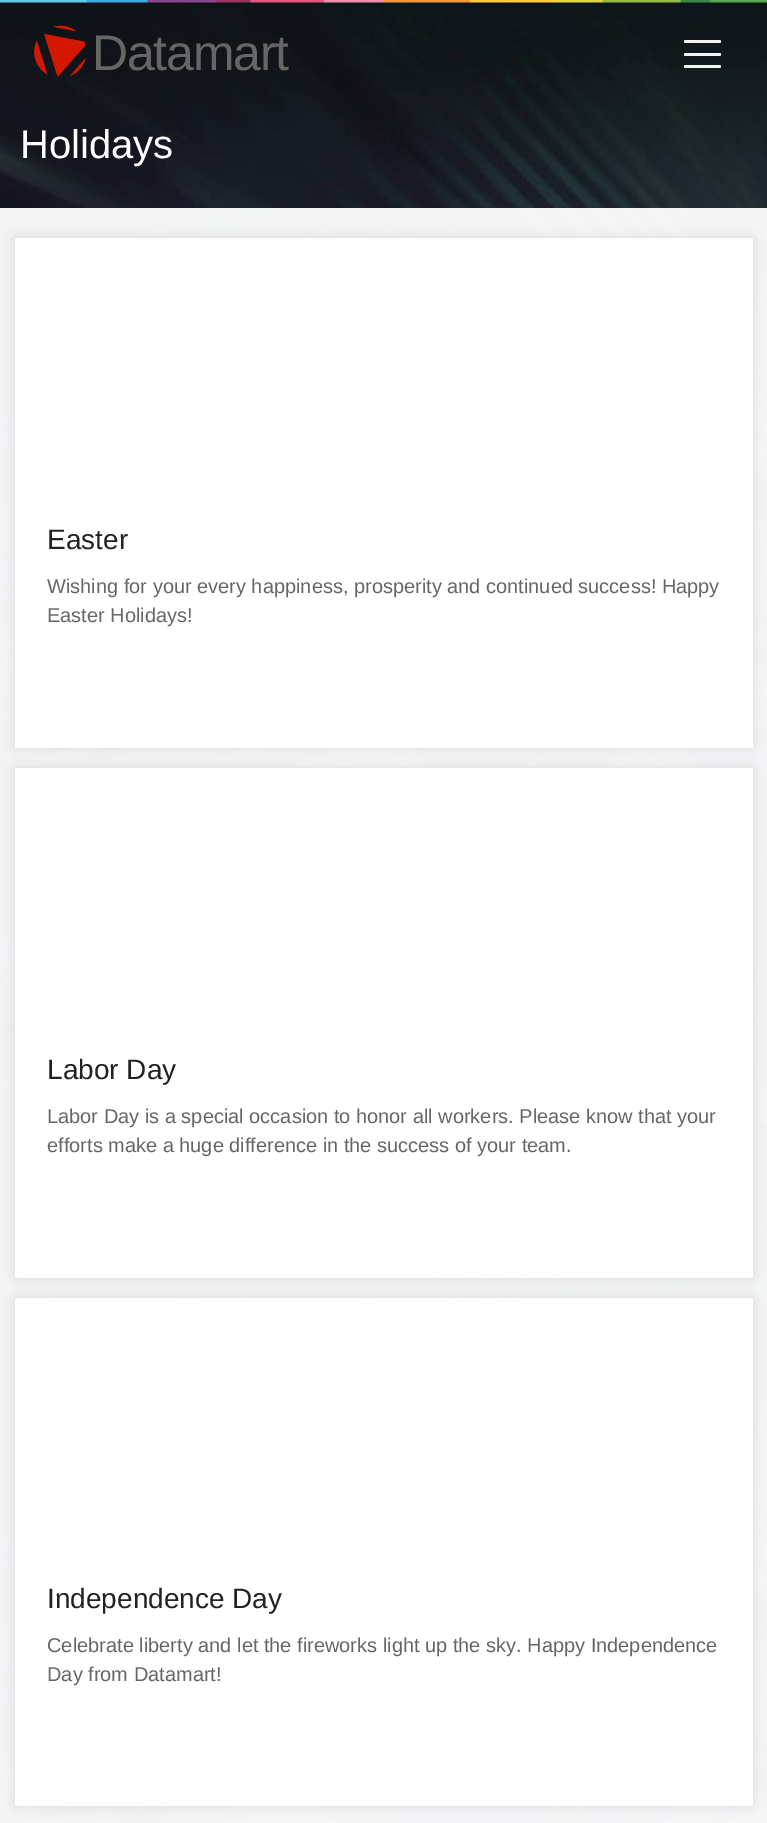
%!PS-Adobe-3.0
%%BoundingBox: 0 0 767 1823
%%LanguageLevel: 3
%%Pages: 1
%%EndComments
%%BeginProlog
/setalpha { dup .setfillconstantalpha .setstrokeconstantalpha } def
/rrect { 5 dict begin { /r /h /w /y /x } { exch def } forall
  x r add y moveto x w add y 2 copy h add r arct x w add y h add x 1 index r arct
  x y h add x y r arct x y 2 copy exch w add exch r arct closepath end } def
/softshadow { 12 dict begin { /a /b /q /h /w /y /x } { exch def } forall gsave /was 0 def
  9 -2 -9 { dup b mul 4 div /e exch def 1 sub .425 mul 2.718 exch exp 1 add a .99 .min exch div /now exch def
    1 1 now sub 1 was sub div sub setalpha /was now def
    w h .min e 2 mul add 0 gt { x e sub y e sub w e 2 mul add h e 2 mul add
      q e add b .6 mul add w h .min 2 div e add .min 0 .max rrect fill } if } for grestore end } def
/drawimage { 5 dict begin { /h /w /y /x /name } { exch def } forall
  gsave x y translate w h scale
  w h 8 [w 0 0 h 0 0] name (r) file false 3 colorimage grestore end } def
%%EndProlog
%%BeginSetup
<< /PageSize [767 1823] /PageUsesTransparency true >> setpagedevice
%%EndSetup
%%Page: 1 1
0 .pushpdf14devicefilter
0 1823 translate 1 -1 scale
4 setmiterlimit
1 setgray
0 0 767 1823 rectfill
(images/1.raw) 0 2 767 1821 drawimage
(images/2.raw) 0 0 767 3 drawimage
(images/3.raw) 34 25 52 51 drawimage
0.95 setalpha
684 40 37 3 1.5 rrect fill
1 setalpha
0.953 0.957 0.957 setrgbcolor
684 53 37 3 1.5 rrect fill
684 65 37 3 1.5 rrect fill
0.95 setalpha
1 setgray
0 208 767 1615 rectfill
1 setalpha
0 setgray
15 238 738 510 1 6 0.1 softshadow
1 setgray
15 238 738 510 1 rrect fill
0 setgray
15 768 738 510 1 6 0.1 softshadow
1 setgray
15 768 738 510 1 rrect fill
0 setgray
15 1298 738 508 1 6 0.1 softshadow
1 setgray
15 1298 738 508 1 rrect fill
/LiberationSans-Regular [50 0 0 -50 0 0] selectfont
0.4 setgray
92 70 moveto -1.25 0 (Datamart) ashow
/LiberationSans-Regular [40 0 0 -40 0 0] selectfont
1 setgray
20 158 moveto (Holidays) show
/LiberationSans-Regular [28 0 0 -28 0 0] selectfont
0.133 setgray
47 549 moveto (Easter) show
/LiberationSans-Regular [20 0 0 -20 0 0] selectfont
0.4 setgray
47 593 moveto (Wishing for your every happiness, prosperity and continued success! Happy) show
47 622 moveto (Easter Holidays!) show
/LiberationSans-Regular [28 0 0 -28 0 0] selectfont
0.133 setgray
47 1079 moveto (Labor Day) show
/LiberationSans-Regular [20 0 0 -20 0 0] selectfont
0.4 setgray
47 1123 moveto (Labor Day is a special occasion to honor all workers. Please know that your) show
47 1152 moveto (efforts make a huge difference in the success of your team.) show
/LiberationSans-Regular [28 0 0 -28 0 0] selectfont
0.133 setgray
47 1608 moveto (Independence Day) show
/LiberationSans-Regular [20 0 0 -20 0 0] selectfont
0.4 setgray
47 1652 moveto (Celebrate liberty and let the fireworks light up the sky. Happy Independence) show
47 1681 moveto (Day from Datamart!) show
.poppdf14devicefilter showpage
%%EOF
